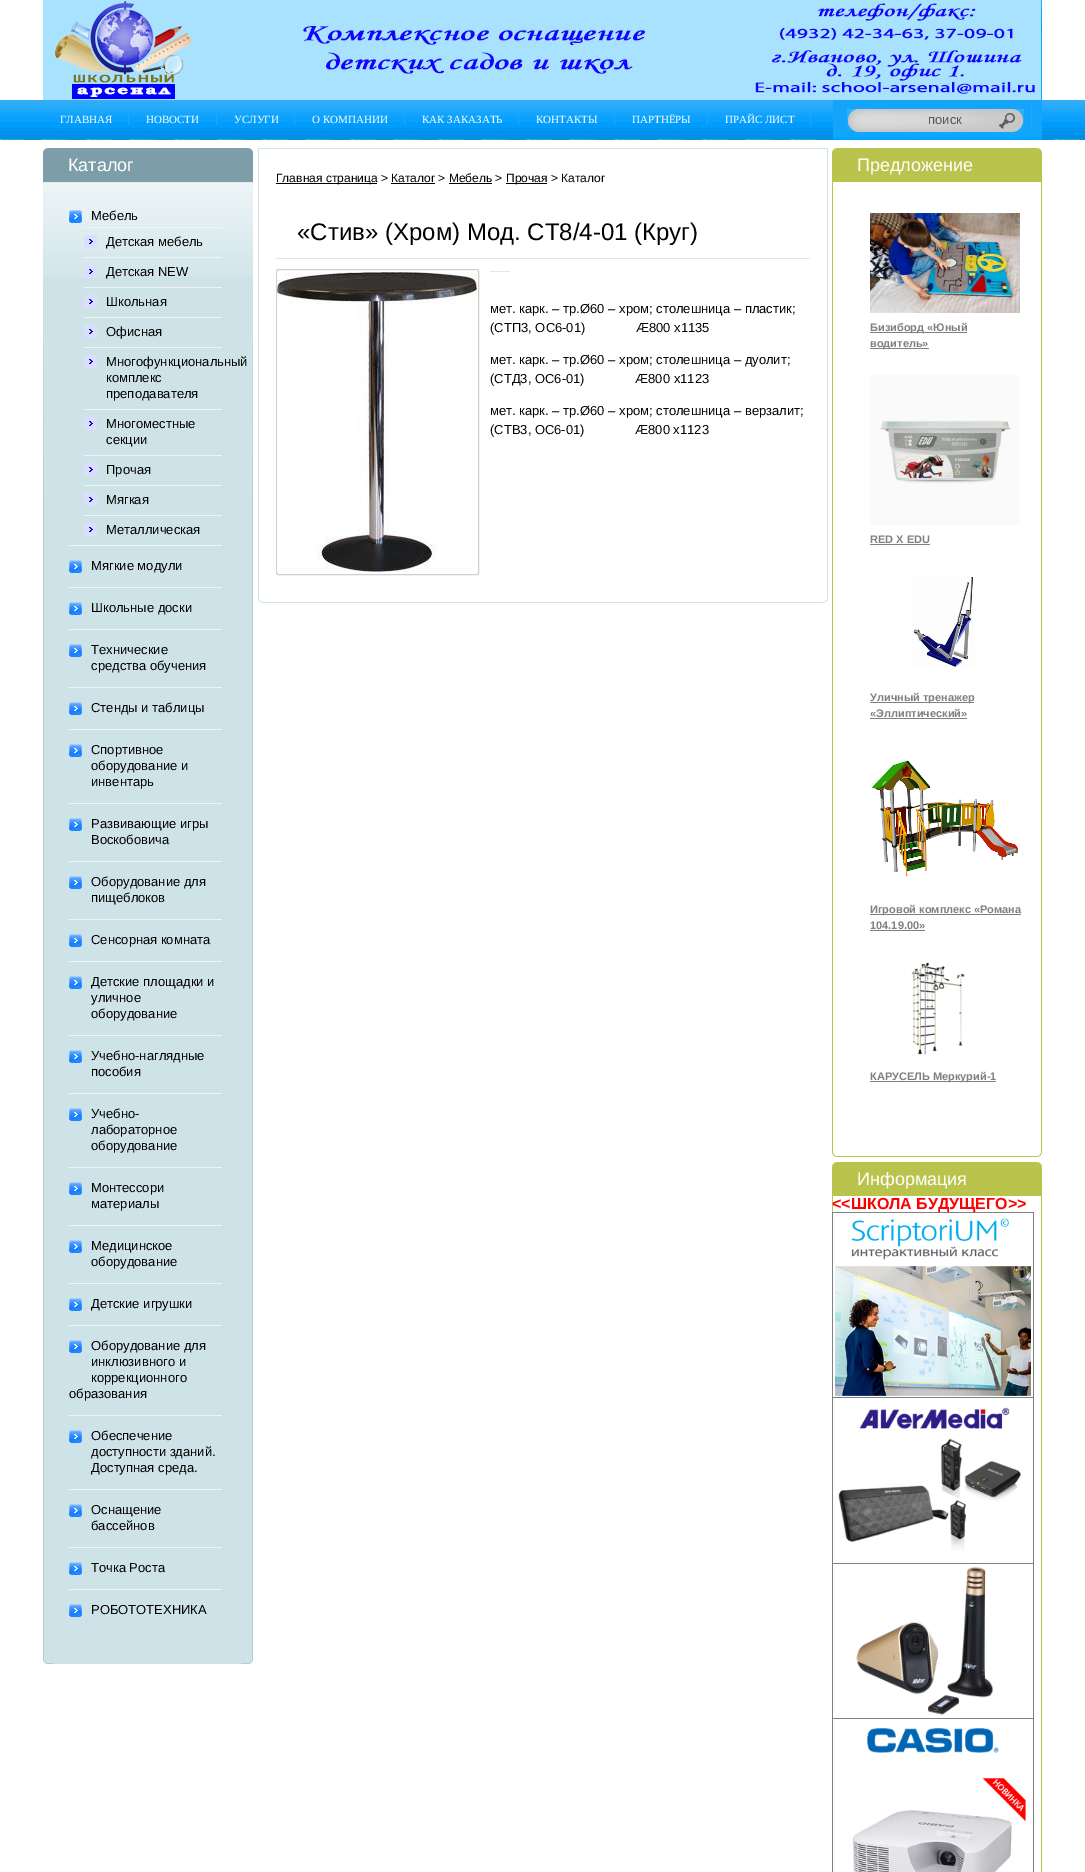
%!PS-Adobe-3.0
%%BoundingBox: 0 0 1085 1872
%%LanguageLevel: 3
%%Pages: 1
%%EndComments
%%BeginProlog
/rrect { 5 dict begin { /r /h /w /y /x } { exch def } forall
  x r add y moveto x w add y 2 copy h add r arct x w add y h add x 1 index r arct
  x y h add x y r arct x y 2 copy exch w add exch r arct closepath end } def
/drawimage { 5 dict begin { /h /w /y /x /name } { exch def } forall
  gsave x y translate w h scale
  w h 8 [w 0 0 h 0 0] name (r) file false 3 colorimage grestore end } def
%%EndProlog
%%BeginSetup
<< /PageSize [1085 1872] >> setpagedevice
%%EndSetup
%%Page: 1 1
0 1872 translate 1 -1 scale
4 setmiterlimit
1 setgray
0 0 1085 1872 rectfill
(images/1.raw) 0 100 1085 30 drawimage
(images/2.raw) 833 30 209 100 drawimage
(images/3.raw) 1041 0 1 30 drawimage
(images/4.raw) 43 0 998 100 drawimage
0.153 0.647 0.976 setrgbcolor
128 114 1 11 rectfill
216 114 1 11 rectfill
294 114 1 11 rectfill
404 114 1 11 rectfill
518 114 1 11 rectfill
614 114 1 11 rectfill
707 114 1 11 rectfill
810 114 1 11 rectfill
(images/6.raw) 0 130 1085 10 drawimage
(images/7.raw) 833 130 209 10 drawimage
(images/5.raw) 847 109 177 23 drawimage
(images/8.raw) 43 148 10 34 drawimage
(images/9.raw) 243 148 10 34 drawimage
0.49 0.62 0.659 setrgbcolor
53 148 190 34 rectfill
0.808 0.89 0.91 setrgbcolor
44 277 208 1377 rectfill
(images/10.raw) 44 182 208 95 drawimage
0.698 0.804 0.831 setrgbcolor
43 496 1 1158 rectfill
252 496 1 1158 rectfill
(images/11.raw) 43 182 1 314 drawimage
(images/12.raw) 252 182 1 314 drawimage
(images/13.raw) 69 210 13 13 drawimage
(images/14.raw) 84 235 13 13 drawimage
0.929 0.961 0.969 setrgbcolor
84 227 138 1 rectfill
(images/15.raw) 84 265 13 13 drawimage
84 257 138 1 rectfill
(images/16.raw) 84 295 13 13 drawimage
84 287 138 1 rectfill
(images/16.raw) 84 325 13 13 drawimage
84 317 138 1 rectfill
(images/16.raw) 84 355 13 13 drawimage
84 347 138 1 rectfill
(images/16.raw) 84 417 13 13 drawimage
84 409 138 1 rectfill
(images/16.raw) 84 463 13 13 drawimage
84 455 138 1 rectfill
(images/16.raw) 84 493 13 13 drawimage
84 485 138 1 rectfill
(images/16.raw) 84 523 13 13 drawimage
84 515 138 1 rectfill
(images/17.raw) 69 560 13 13 drawimage
69 545 153 1 rectfill
(images/17.raw) 69 602 13 13 drawimage
69 587 153 1 rectfill
(images/17.raw) 69 644 13 13 drawimage
69 629 153 1 rectfill
(images/17.raw) 69 702 13 13 drawimage
69 687 153 1 rectfill
(images/17.raw) 69 744 13 13 drawimage
69 729 153 1 rectfill
(images/17.raw) 69 818 13 13 drawimage
69 803 153 1 rectfill
(images/17.raw) 69 876 13 13 drawimage
69 861 153 1 rectfill
(images/17.raw) 69 934 13 13 drawimage
69 919 153 1 rectfill
(images/17.raw) 69 976 13 13 drawimage
69 961 153 1 rectfill
(images/17.raw) 69 1050 13 13 drawimage
69 1035 153 1 rectfill
(images/17.raw) 69 1108 13 13 drawimage
69 1093 153 1 rectfill
(images/17.raw) 69 1182 13 13 drawimage
69 1167 153 1 rectfill
(images/17.raw) 69 1240 13 13 drawimage
69 1225 153 1 rectfill
(images/17.raw) 69 1298 13 13 drawimage
69 1283 153 1 rectfill
(images/17.raw) 69 1340 13 13 drawimage
69 1325 153 1 rectfill
(images/17.raw) 69 1430 13 13 drawimage
69 1415 153 1 rectfill
(images/17.raw) 69 1504 13 13 drawimage
69 1489 153 1 rectfill
(images/17.raw) 69 1562 13 13 drawimage
69 1547 153 1 rectfill
(images/17.raw) 69 1604 13 13 drawimage
69 1589 153 1 rectfill
(images/18.raw) 43 1654 10 10 drawimage
(images/19.raw) 241 1654 12 10 drawimage
0.808 0.89 0.91 setrgbcolor
53 1654 188 10 rectfill
258 148 570 1 rectfill
258 602 570 1 rectfill
258 149 1 453 rectfill
827 149 1 453 rectfill
(images/20.raw) 258 599 5 4 drawimage
(images/21.raw) 823 599 5 4 drawimage
0 setgray
276 183 101 1 rectfill
506 183 41 1 rectfill
391 183 44 1 rectfill
449 183 43 1 rectfill
0.898 setgray
276 258 534 1 rectfill
0.812 setgray
276.5 269.5 202 305 1.5 rrect stroke
(images/22.raw) 277 272 200 300 drawimage
0.902 setgray
490 271 20 1 rectfill
(images/23.raw) 832 148 10 34 drawimage
(images/24.raw) 1032 148 10 34 drawimage
0.729 0.769 0.302 setrgbcolor
842 148 190 34 rectfill
832 182 1 965 rectfill
1041 182 1 965 rectfill
(images/25.raw) 870 213 150 100 drawimage
0.502 setgray
870 332 97 1 rectfill
870 348 59 1 rectfill
(images/26.raw) 870 375 150 150 drawimage
870 544 60 1 rectfill
(images/27.raw) 911 577 64 91 drawimage
870 702 104 1 rectfill
870 718 97 1 rectfill
(images/28.raw) 872 760 146 117 drawimage
870 914 151 1 rectfill
870 930 55 1 rectfill
(images/29.raw) 911 962 54 93 drawimage
870 1081 126 1 rectfill
(images/30.raw) 832 1147 10 10 drawimage
(images/31.raw) 1033 1147 9 10 drawimage
0.729 0.769 0.302 setrgbcolor
842 1156 191 1 rectfill
(images/23.raw) 832 1162 10 34 drawimage
(images/24.raw) 1032 1162 10 34 drawimage
842 1162 190 34 rectfill
832 1196 1 16 rectfill
1041 1196 1 676 rectfill
0.502 setgray
832 1212 202 1 rectfill
1033 1212 1 660 rectfill
832 1212 1 660 rectfill
(images/32.raw) 835 1218 196 178 drawimage
832 1397 202 1 rectfill
(images/33.raw) 838 1407 183 144 drawimage
832 1563 202 1 rectfill
(images/34.raw) 856 1566 138 149 drawimage
832 1718 202 1 rectfill
(images/35.raw) 852 1728 174 144 drawimage
/LiberationSerif-Regular [11 0 0 -11 0 0] selectfont
1 setgray
60 123 moveto (ГЛАВНАЯ) show
146 123 moveto (НОВОСТИ) show
234 123 moveto (УСЛУГИ) show
312 123 moveto (О КОМПАНИИ) show
422 123 moveto (КАК ЗАКАЗАТЬ) show
536 123 moveto (КОНТАКТЫ) show
632 123 moveto (ПАРТНЁРЫ) show
725 123 moveto (ПРАЙС ЛИСТ) show
/LiberationSans-Regular [13 0 0 -13 0 0] selectfont
0.333 setgray
928 124 moveto (поиск) show
/LiberationSans-Regular [18 0 0 -18 0 0] selectfont
1 setgray
68 171 moveto (Каталог) show
/LiberationSans-Regular [13 0 0 -13 0 0] selectfont
0 setgray
91 220 moveto (Мебель) show
106 246 moveto (Детская мебель) show
106 276 moveto (Детская NEW) show
106 306 moveto (Школьная) show
106 336 moveto (Офисная) show
106 366 moveto (Многофункциональный) show
106 382 moveto (комплекс) show
106 398 moveto (преподавателя) show
106 428 moveto (Многоместные) show
106 444 moveto (секции) show
106 474 moveto (Прочая) show
106 504 moveto (Мягкая) show
106 534 moveto (Металлическая) show
91 570 moveto (Мягкие модули) show
91 612 moveto (Школьные доски) show
91 654 moveto (Технические) show
91 670 moveto (средства обучения) show
91 712 moveto (Стенды и таблицы) show
91 754 moveto (Спортивное) show
91 770 moveto (оборудование и) show
91 786 moveto (инвентарь) show
91 828 moveto (Развивающие игры) show
91 844 moveto (Воскобовича) show
91 886 moveto (Оборудование для) show
91 902 moveto (пищеблоков) show
91 944 moveto (Сенсорная комната) show
91 986 moveto (Детские площадки и) show
91 1002 moveto (уличное) show
91 1018 moveto (оборудование) show
91 1060 moveto (Учебно-наглядные) show
91 1076 moveto (пособия) show
91 1118 moveto (Учебно-) show
91 1134 moveto (лабораторное) show
91 1150 moveto (оборудование) show
91 1192 moveto (Монтессори) show
91 1208 moveto (материалы) show
91 1250 moveto (Медицинское) show
91 1266 moveto (оборудование) show
91 1308 moveto (Детские игрушки) show
91 1350 moveto (Оборудование для) show
91 1366 moveto (инклюзивного и) show
91 1382 moveto (коррекционного) show
69 1398 moveto (образования) show
91 1440 moveto (Обеспечение) show
91 1456 moveto (доступности зданий.) show
91 1472 moveto (Доступная среда.) show
91 1514 moveto (Оснащение) show
91 1530 moveto (бассейнов) show
91 1572 moveto (Точка Роста) show
91 1614 moveto (РОБОТОТЕХНИКА) show
/LiberationSans-Regular [12 0 0 -12 0 0] selectfont
276 182 moveto (Главная страница > Каталог > Мебель >) show
506 182 moveto (Прочая > Каталог) show
/LiberationSans-Regular [24 0 0 -24 0 0] selectfont
297 240 moveto («Стив» \(Хром\) Мод. СТ8/4-01 \(Круг\)) show
/LiberationSans-Regular [13 0 0 -13 0 0] selectfont
490 313 moveto (мет. карк. – тр.Ø60 – хром; столешница – пластик;) show
490 332 moveto (\(СТП3, ОС6-01\)              Æ800 х1135) show
490 364 moveto (мет. карк. – тр.Ø60 – хром; столешница – дуолит;) show
490 383 moveto (\(СТД3, ОС6-01\)              Æ800 х1123) show
490 415 moveto (мет. карк. – тр.Ø60 – хром; столешница – верзалит;) show
490 434 moveto (\(СТВ3, ОС6-01\)              Æ800 x1123) show
/LiberationSans-Regular [18 0 0 -18 0 0] selectfont
1 setgray
857 171 moveto (Предложение) show
/LiberationSans-Bold [11 0 0 -11 0 0] selectfont
0.502 setgray
870 331 moveto (Бизиборд «Юный) show
870 347 moveto (водитель») show
870 543 moveto (RED X EDU) show
870 701 moveto (Уличный тренажер) show
870 717 moveto («Эллиптический») show
870 913 moveto (Игровой комплекс «Романа) show
870 929 moveto (104.19.00») show
870 1080 moveto (КАРУСЕЛЬ Меркурий-1) show
/LiberationSans-Regular [18 0 0 -18 0 0] selectfont
1 setgray
857 1185 moveto (Информация) show
/LiberationSans-Bold [16 0 0 -16 0 0] selectfont
1 0 0 setrgbcolor
832 1209 moveto (<<ШКОЛА БУДУЩЕГО>>) show
showpage
%%EOF
